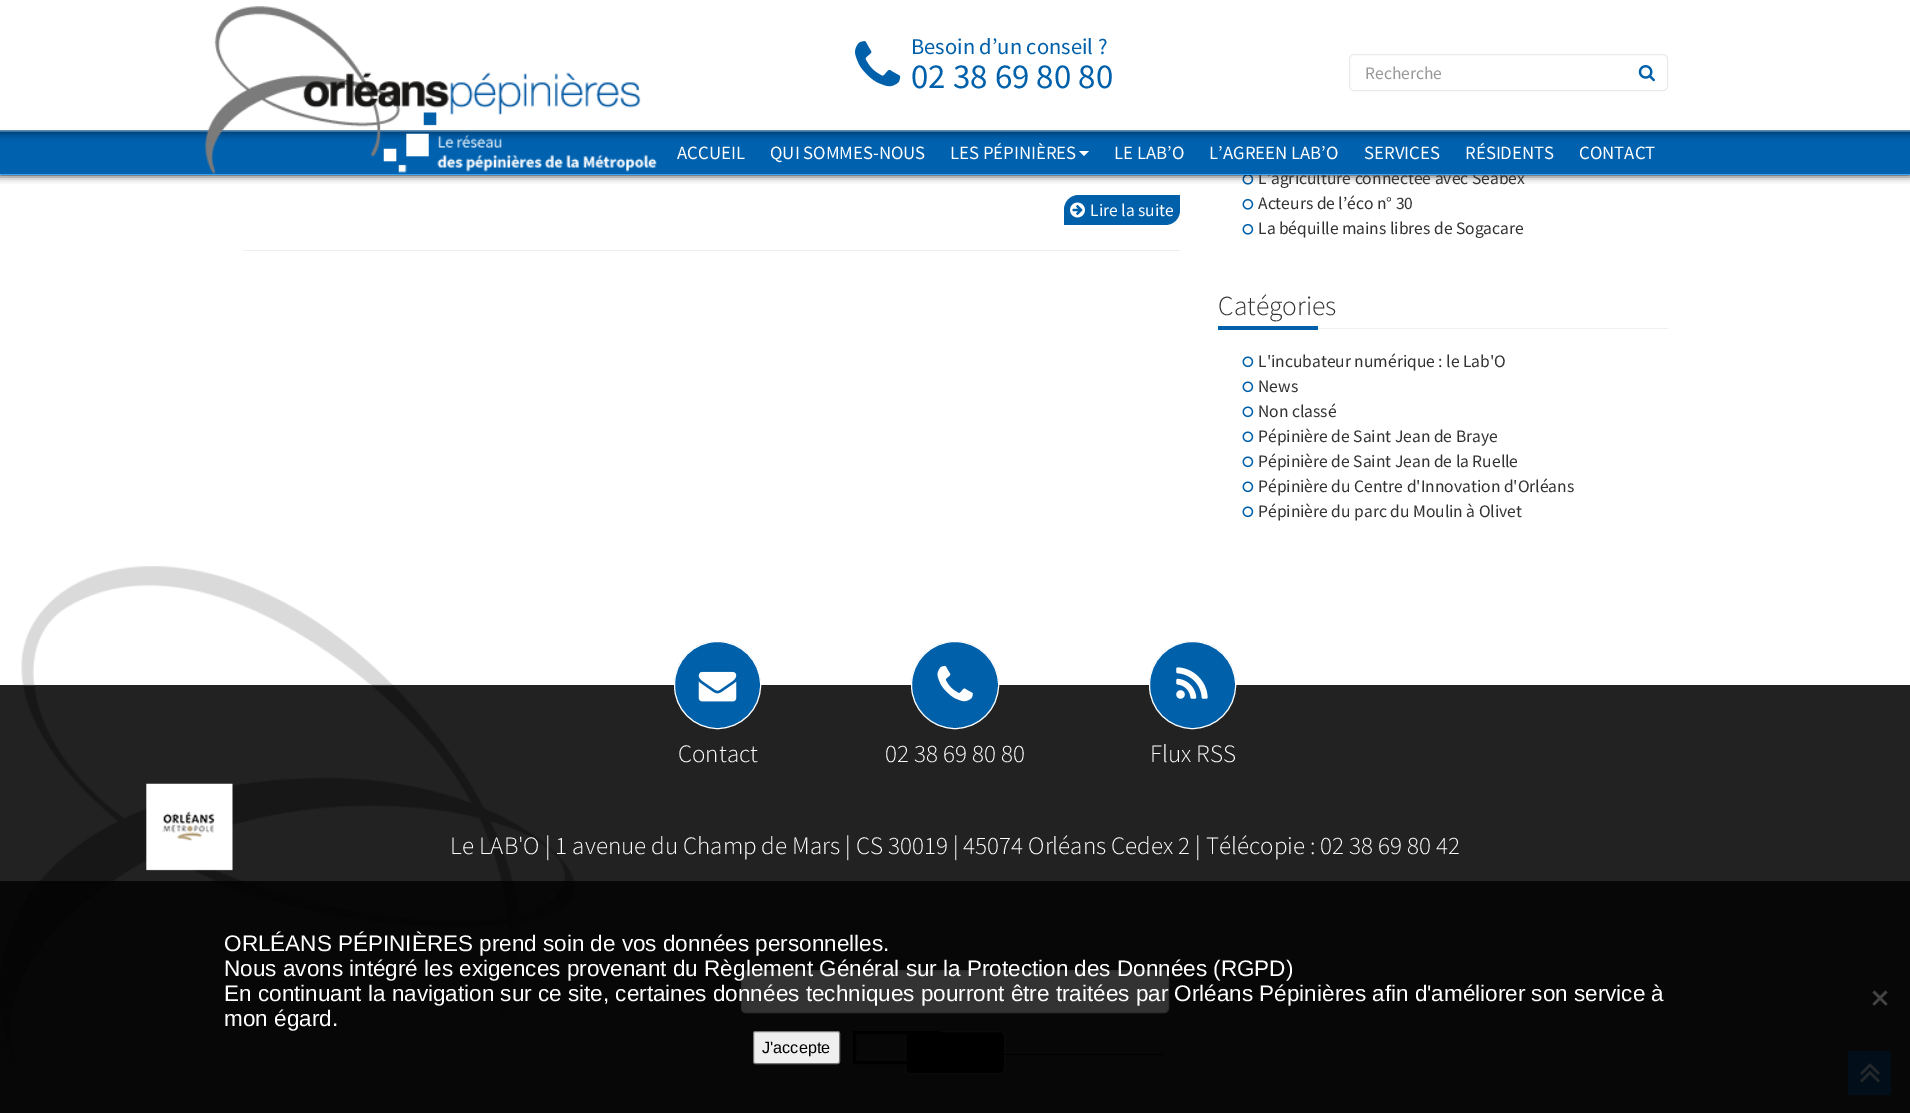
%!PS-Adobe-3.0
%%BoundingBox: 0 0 1910 1113
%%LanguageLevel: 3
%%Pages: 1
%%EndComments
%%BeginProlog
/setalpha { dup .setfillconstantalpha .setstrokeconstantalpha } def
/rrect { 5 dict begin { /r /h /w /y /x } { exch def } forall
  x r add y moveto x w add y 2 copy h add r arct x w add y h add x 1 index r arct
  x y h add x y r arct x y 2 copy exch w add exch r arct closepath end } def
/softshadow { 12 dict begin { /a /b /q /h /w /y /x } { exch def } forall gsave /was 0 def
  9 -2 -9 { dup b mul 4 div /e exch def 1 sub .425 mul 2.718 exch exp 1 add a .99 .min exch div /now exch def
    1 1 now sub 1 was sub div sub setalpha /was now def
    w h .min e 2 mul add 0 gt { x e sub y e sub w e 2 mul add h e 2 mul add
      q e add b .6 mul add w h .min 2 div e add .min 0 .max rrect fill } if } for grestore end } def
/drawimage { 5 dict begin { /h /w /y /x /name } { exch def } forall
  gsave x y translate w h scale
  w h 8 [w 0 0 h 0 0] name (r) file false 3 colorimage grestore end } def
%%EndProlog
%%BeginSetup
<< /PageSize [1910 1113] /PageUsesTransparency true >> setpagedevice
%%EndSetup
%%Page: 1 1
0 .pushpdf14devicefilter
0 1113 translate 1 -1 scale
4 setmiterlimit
1 setgray
0 0 1910 1113 rectfill
(images/6.raw) 1242 175 12 10 drawimage
0 setgray
0 0 1910 175 0 4 1 softshadow
1 setgray
0 0 1910 132 rectfill
(images/2.raw) 855 41 46 46 drawimage
0.91 0.922 0.929 setrgbcolor
1349.5 54.5 318 36 4.5 rrect stroke
(images/3.raw) 1638 65 17 17 drawimage
0.365 0.553 0.71 setrgbcolor
0 130 1910 1 rectfill
0.933 setgray
243 250 937 1 rectfill
0.004 0.376 0.667 setrgbcolor
newpath 1079 195 moveto 1180 195 lineto 1180 210 lineto 1180 218.5 1173.5 225 1165 225 curveto 1064 225 lineto 1064 210 lineto 1064 201.5 1070.5 195 1079 195 curveto closepath fill
(images/5.raw) 1070 202 15 16 drawimage
(images/7.raw) 1242 198 12 12 drawimage
(images/7.raw) 1242 223 12 12 drawimage
0.937 setgray
1318 328 350 1 rectfill
0.004 0.376 0.667 setrgbcolor
1218 326 100 4 rectfill
(images/8.raw) 1242 356 12 12 drawimage
(images/8.raw) 1242 381 12 12 drawimage
(images/8.raw) 1242 406 12 12 drawimage
(images/8.raw) 1242 431 12 12 drawimage
(images/8.raw) 1242 456 12 12 drawimage
(images/8.raw) 1242 481 12 12 drawimage
(images/8.raw) 1242 506 12 12 drawimage
0.133 setgray
0 685 1910 428 rectfill
(images/9.raw) 0 566 575 497 drawimage
0.004 0.376 0.667 setrgbcolor
674.5 641.5 86 87 43 rrect gsave fill grestore
1 setgray
stroke
(images/10.raw) 698 671 39 31 drawimage
0.004 0.376 0.667 setrgbcolor
newpath 955 685 43.5 0 360 arc closepath gsave fill grestore
1 setgray
stroke
(images/11.raw) 937 665 36 37 drawimage
0.004 0.376 0.667 setrgbcolor
1149.5 641.5 86 87 43 rrect gsave fill grestore
1 setgray
stroke
(images/12.raw) 1176 667 32 32 drawimage
741 970 428 43 5 rrect fill
0.925 setgray
newpath 746 972 moveto 1164 972 lineto 1166 972 1168 974 1168 976 curveto 1168 975 lineto 1168 973 1166 971 1164 971 curveto 747 971 lineto 746 971 744 972 744 973 curveto closepath fill
0.867 setgray
741.5 970.5 427 42 4.5 rrect stroke
0 setgray
905.5 1031.5 99 42 4.5 rrect gsave fill grestore
0.2 setgray
stroke
0.043 0.302 0.506 setrgbcolor
1848 1051 43 44 rectfill
(images/13.raw) 1860 1063 20 20 drawimage
0.8 setalpha
0 setgray
0 881 1910 232 rectfill
1 setalpha
0.263 setgray
newpath 1885.5 990.5 moveto 1887.5 992.5 lineto 1874.5 1005.5 lineto 1872.5 1004 lineto closepath fill
newpath 1872.5 992.5 moveto 1874.5 990.5 lineto 1887.5 1004 lineto 1885.5 1005.5 lineto closepath fill
0.937 setgray
753.5 1031.5 86 32 2 rrect gsave fill grestore
0.463 setgray
stroke
0 setgray
3 setlinewidth
854.5 1032.5 84 30 rectstroke
1004 1054 159 1 rectfill
/SourceSansPro-Regular [22.5 0 0 -22.5 0 0] selectfont
0.004 0.376 0.667 setrgbcolor
911 54 moveto (Besoin d’un conseil ?) show
/SourceSansPro-Regular [35 0 0 -35 0 0] selectfont
911 88 moveto (02 38 69 80 80) show
/SourceSansPro-Regular [17.5 0 0 -17.5 0 0] selectfont
0.6 setgray
1365 79 moveto (Recherche) show
1 setgray
1090 216 moveto (Lire la suite) show
0.2 setgray
1258 184 moveto (L’agriculture connectée avec Seabex) show
(images/4.raw) 0 131 1910 43 drawimage
(images/1.raw) 205 6 452 168 drawimage
/SourceSansPro-Regular [18.75 0 0 -18.75 0 0] selectfont
1 setgray
1579 159 moveto (CONTACT) show
1465 159 moveto (RÉSIDENTS) show
1364 159 moveto (SERVICES) show
1209 159 moveto (L’AGREEN LAB’O) show
1114 159 moveto (LE LAB’O) show
newpath 1079 151 moveto 1089 151 lineto 1084 156 lineto closepath fill
950 159 moveto (LES PÉPINIÈRES) show
770 159 moveto (QUI SOMMES-NOUS) show
677 159 moveto (ACCUEIL) show
0.196 0.647 0.996 setrgbcolor
0 174 1910 1 rectfill
/SourceSansPro-Regular [17.5 0 0 -17.5 0 0] selectfont
0.2 setgray
1258 209 moveto (Acteurs de l’éco n° 30) show
1258 234 moveto (La béquille mains libres de Sogacare) show
/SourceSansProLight-Light [27.5 0 0 -27.5 0 0] selectfont
1218 315 moveto (Catégories) show
/SourceSansPro-Regular [17.5 0 0 -17.5 0 0] selectfont
1258 367 moveto (L'incubateur numérique : le Lab'O) show
1258 392 moveto (News) show
1258 417 moveto (Non classé) show
1258 442 moveto (Pépinière de Saint Jean de Braye) show
1258 467 moveto (Pépinière de Saint Jean de la Ruelle) show
1258 492 moveto (Pépinière du Centre d'Innovation d'Orléans) show
1258 517 moveto (Pépinière du parc du Moulin à Olivet) show
/SourceSansProLight-Light [25 0 0 -25 0 0] selectfont
1 setgray
678 762 moveto (Contact) show
885 762 moveto (02 38 69 80 80) show
1150 762 moveto (Flux RSS) show
450 854 moveto (Le LAB'O | 1 avenue du Champ de Mars | CS 30019 | 45074 Orléans Cedex 2 | Télécopie : 02 38 69 80 42) show
/LiberationSans-Regular [22.5 0 0 -22.5 0 0] selectfont
224 951 moveto (ORLÉANS PÉPINIÈRES prend soin de vos données personnelles.) show
224 976 moveto (Nous avons intégré les exigences provenant du Règlement Général sur la Protection des Données \(RGPD\)) show
224 1001 moveto (En continuant la navigation sur ce site, certaines données techniques pourront être traitées par Orléans Pépinières afin d'améliorer son service à) show
224 1026 moveto (mon égard.) show
/LiberationSans-Regular [16.25 0 0 -16.25 0 0] selectfont
0 setgray
762 1053 moveto (J'accepte) show
.poppdf14devicefilter showpage
%%EOF
